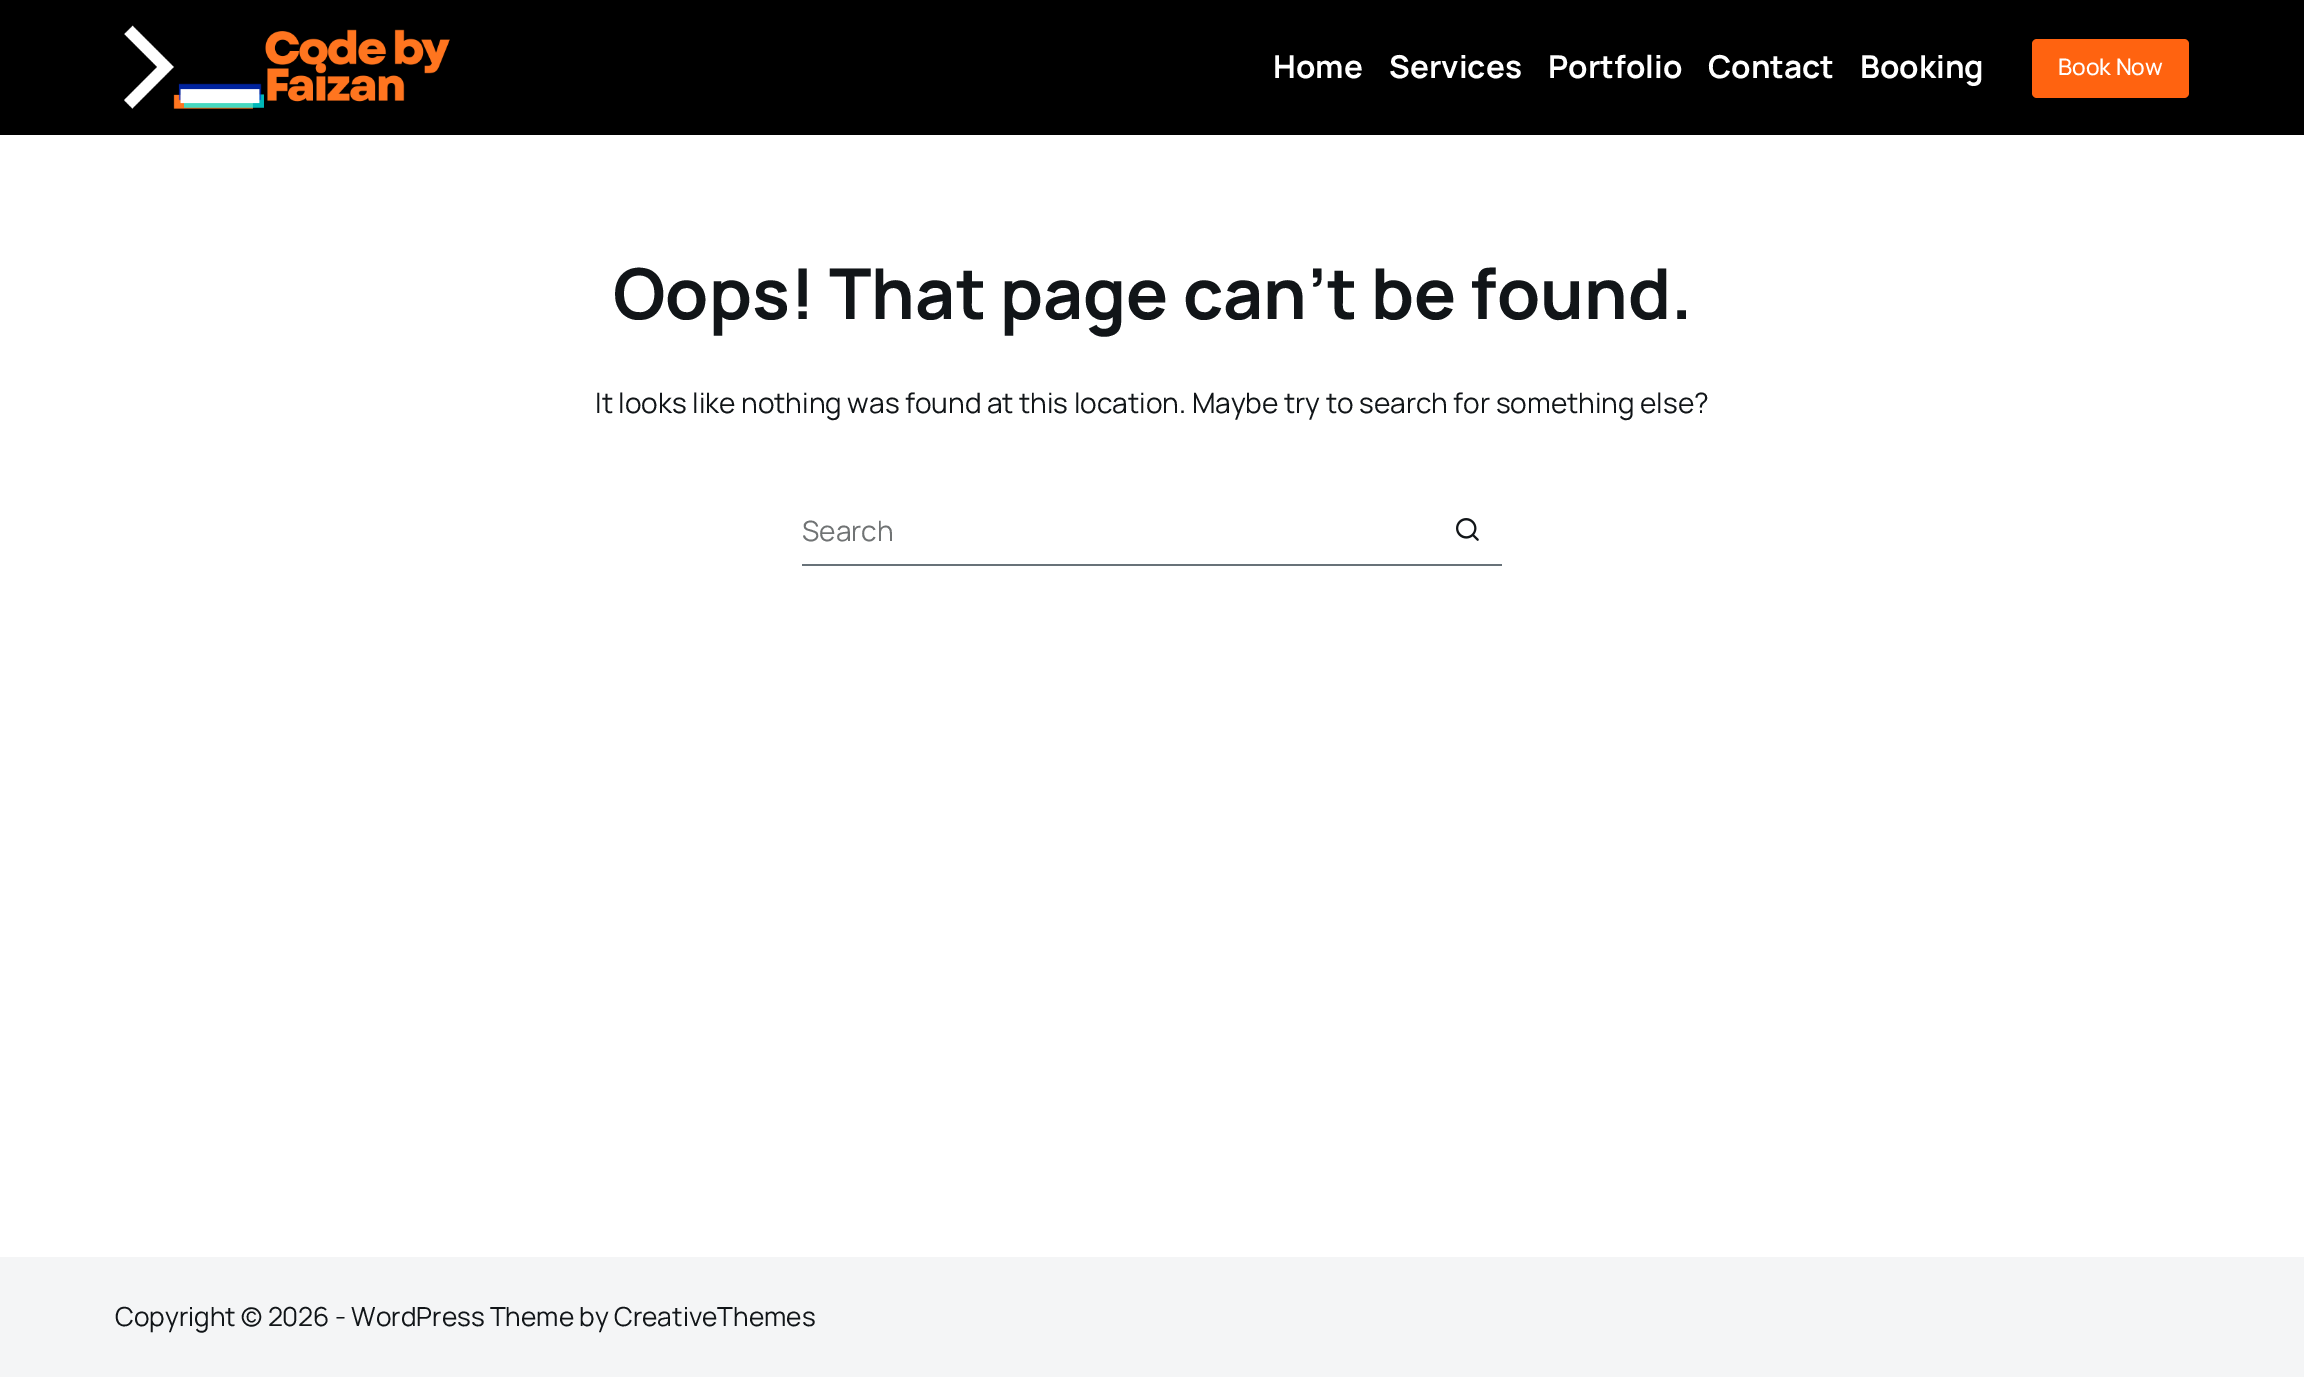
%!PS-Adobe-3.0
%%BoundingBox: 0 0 2304 1377
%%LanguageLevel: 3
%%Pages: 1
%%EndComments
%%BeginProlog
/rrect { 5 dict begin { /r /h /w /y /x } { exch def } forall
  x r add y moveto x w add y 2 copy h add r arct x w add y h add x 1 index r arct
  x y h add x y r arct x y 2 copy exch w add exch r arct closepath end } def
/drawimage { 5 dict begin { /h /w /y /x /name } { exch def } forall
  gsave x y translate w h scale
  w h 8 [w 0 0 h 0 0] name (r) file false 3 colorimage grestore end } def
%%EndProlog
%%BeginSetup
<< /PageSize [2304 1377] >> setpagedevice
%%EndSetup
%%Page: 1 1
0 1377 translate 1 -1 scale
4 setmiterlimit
1 setgray
0 0 2304 1377 rectfill
0 setgray
0 0 2304 135 rectfill
(images/1.raw) 124 25 326 84 drawimage
1 0.388 0.063 setrgbcolor
2032 39 157 59 5 rrect fill
0.408 0.447 0.475 setrgbcolor
802 564 700 2 rectfill
(images/2.raw) 1456 518 23 23 drawimage
0.957 0.961 0.965 setrgbcolor
0 1257 2304 120 rectfill
/Manrope-Bold [31.5 0 0 -31.5 0 0] selectfont
1 setgray
1273 78 moveto (Home) show
1389 78 moveto (Services) show
1548 78 moveto (Portfolio) show
1708 78 moveto (Contact) show
1860 78 moveto (Booking) show
/Manrope-Medium [22.75 0 0 -22.75 0 0] selectfont
2058 75 moveto (Book Now) show
/Manrope-Bold [70 0 0 -70 0 0] selectfont
0.067 0.082 0.094 setrgbcolor
613 319 moveto (Oops! That page can’t be found.) show
/Manrope-Regular [28 0 0 -28 0 0] selectfont
595 413 moveto (It looks like nothing was found at this location. Maybe try to search for something else?) show
0.439 0.451 0.455 setrgbcolor
802 541 moveto (Search) show
/Manrope-Regular [26.25 0 0 -26.25 0 0] selectfont
0.067 0.082 0.094 setrgbcolor
115 1326 moveto (Copyright © 2026 - WordPress Theme by CreativeThemes) show
showpage
%%EOF
